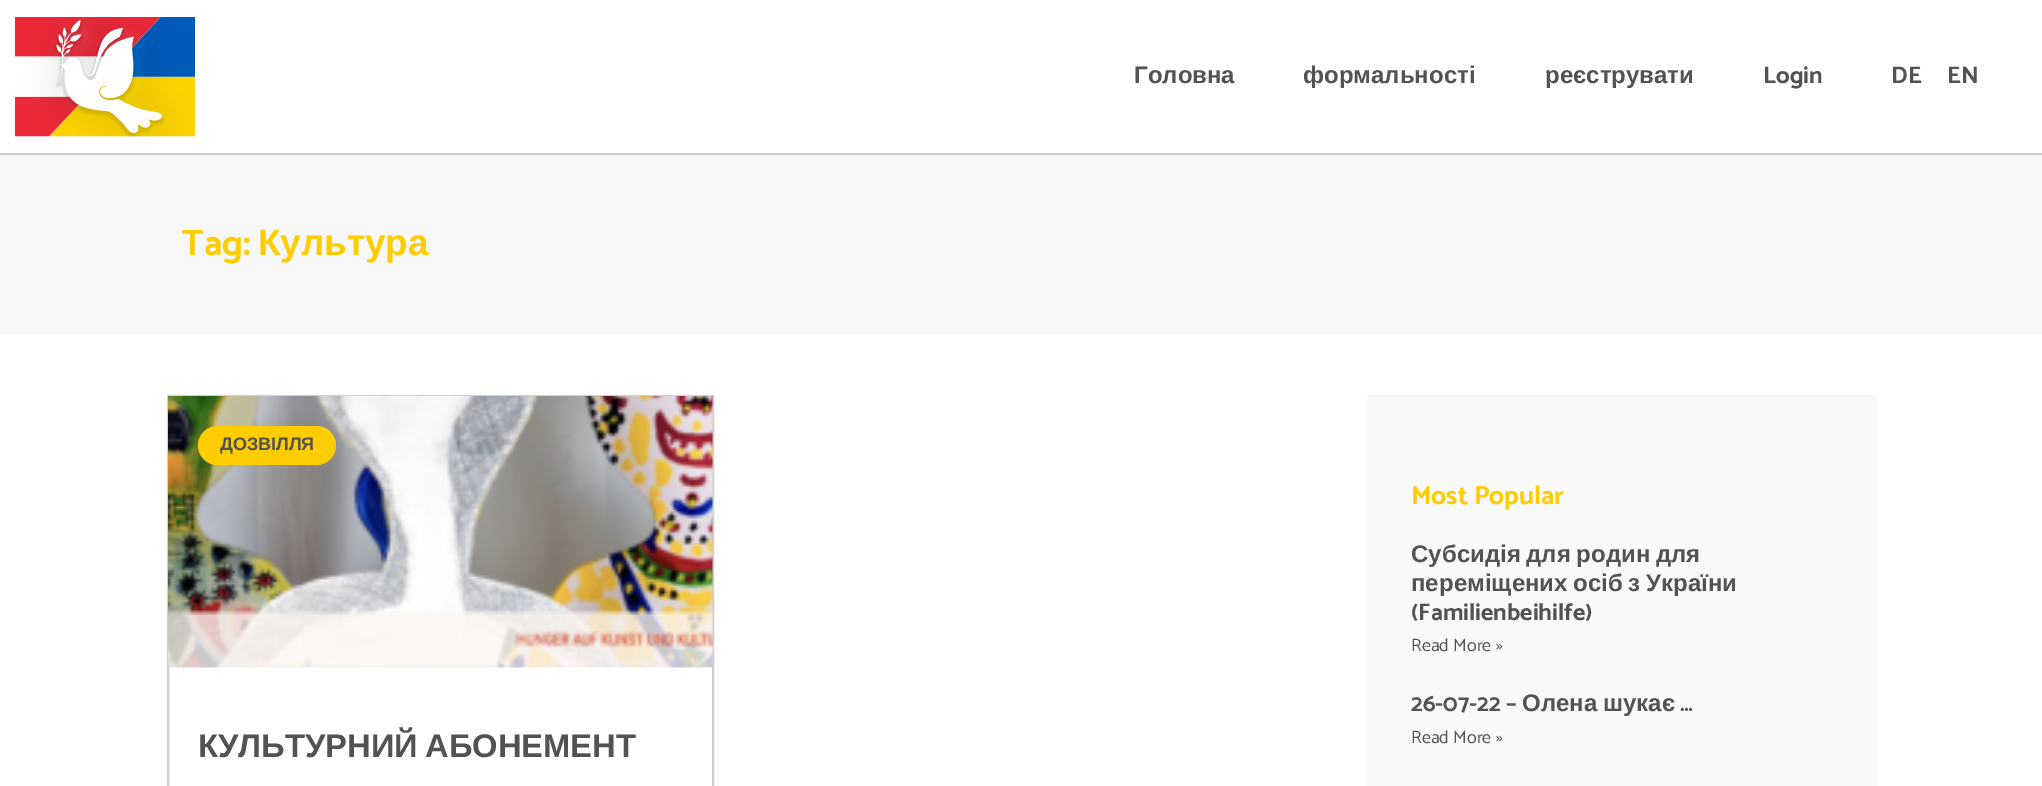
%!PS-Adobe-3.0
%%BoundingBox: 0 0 2042 786
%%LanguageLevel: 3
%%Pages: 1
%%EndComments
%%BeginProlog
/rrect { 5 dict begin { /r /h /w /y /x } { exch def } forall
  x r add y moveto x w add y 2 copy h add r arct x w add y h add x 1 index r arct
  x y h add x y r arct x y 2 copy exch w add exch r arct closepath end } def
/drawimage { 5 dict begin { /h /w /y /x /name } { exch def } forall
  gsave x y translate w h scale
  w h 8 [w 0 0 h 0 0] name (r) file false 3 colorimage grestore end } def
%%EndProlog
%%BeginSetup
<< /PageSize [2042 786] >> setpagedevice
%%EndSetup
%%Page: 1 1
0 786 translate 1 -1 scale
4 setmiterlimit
1 setgray
0 0 2042 786 rectfill
0.808 setgray
0 153 2042 2 rectfill
(images/1.raw) 15 17 180 120 drawimage
0.969 setgray
0 155 2042 180 rectfill
0.808 setgray
2 setlinewidth
168 396 545 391 rectstroke
(images/2.raw) 168 396 545 272 drawimage
1 0.8 0 setrgbcolor
198 426 138 39 19.5 rrect fill
0.976 setgray
1367 395 510 391 rectfill
/LiberationSans-Bold [24 0 0 -24 0 0] selectfont
0.322 setgray
1134 83 moveto (Головна) show
1303 83 moveto (формальності) show
1545 83 moveto (реєструвати) show
/Catamaran-Bold [24 0 0 -24 0 0] selectfont
1763 83 moveto (Login) show
1891 83 moveto (DE) show
1947 83 moveto (EN) show
/Catamaran-Bold [36.75 0 0 -36.75 0 0] selectfont
1 0.8 0 setrgbcolor
182 255 moveto (Tag:) show
/LiberationSans-Bold [36.75 0 0 -36.75 0 0] selectfont
258 255 moveto (Культура) show
/LiberationSans-Bold [18 0 0 -18 0 0] selectfont
0.322 setgray
220 450 moveto (ДОЗВІЛЛЯ) show
/LiberationSans-Bold [32.75 0 0 -32.75 0 0] selectfont
198 757 moveto -2 0 32 (КУЛЬТУРНИЙ АБОНЕМЕНТ) widthshow
/Catamaran-Bold [26.5 0 0 -26.5 0 0] selectfont
1 0.8 0 setrgbcolor
1411 504 moveto (Most Popular) show
/LiberationSans-Bold [24 0 0 -24 0 0] selectfont
0.322 setgray
1411 562 moveto -1 0 32 (Субсидія для родин для) widthshow
1411 591 moveto -1 0 32 (переміщених осіб з України) widthshow
/Catamaran-Bold [24 0 0 -24 0 0] selectfont
1411 620 moveto (\(Familienbeihilfe\)) show
/Catamaran-Regular [18 0 0 -18 0 0] selectfont
1411 651 moveto (Read More ») show
/Catamaran-Bold [24 0 0 -24 0 0] selectfont
1411 711 moveto (26-07-22 –) show
/LiberationSans-Bold [24 0 0 -24 0 0] selectfont
1522 711 moveto (Олена) show
1603 711 moveto (шукає) show
/Catamaran-Bold [24 0 0 -24 0 0] selectfont
1680 711 moveto (…) show
/Catamaran-Regular [18 0 0 -18 0 0] selectfont
1411 743 moveto (Read More ») show
showpage
%%EOF
